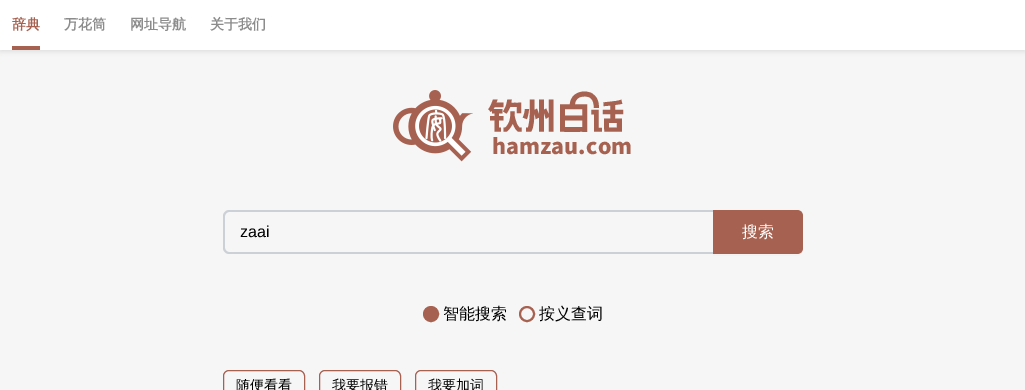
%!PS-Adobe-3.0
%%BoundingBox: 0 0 1025 390
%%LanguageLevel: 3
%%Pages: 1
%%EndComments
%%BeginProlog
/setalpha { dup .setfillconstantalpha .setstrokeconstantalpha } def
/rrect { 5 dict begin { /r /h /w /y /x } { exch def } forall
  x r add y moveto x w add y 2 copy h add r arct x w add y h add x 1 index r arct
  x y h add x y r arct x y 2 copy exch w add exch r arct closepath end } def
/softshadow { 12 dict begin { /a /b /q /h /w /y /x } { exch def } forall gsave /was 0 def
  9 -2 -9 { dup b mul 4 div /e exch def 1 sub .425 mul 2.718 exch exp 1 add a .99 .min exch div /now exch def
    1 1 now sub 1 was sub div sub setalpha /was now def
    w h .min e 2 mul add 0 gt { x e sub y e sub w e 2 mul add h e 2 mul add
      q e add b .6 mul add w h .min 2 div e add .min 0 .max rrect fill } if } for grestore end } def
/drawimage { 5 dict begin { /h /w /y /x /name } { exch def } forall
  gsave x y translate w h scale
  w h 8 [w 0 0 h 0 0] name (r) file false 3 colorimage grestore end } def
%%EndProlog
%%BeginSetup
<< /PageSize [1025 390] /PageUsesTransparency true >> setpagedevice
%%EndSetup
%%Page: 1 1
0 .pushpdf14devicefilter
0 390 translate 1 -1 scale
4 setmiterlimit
0.965 setgray
0 0 1025 390 rectfill
0 setgray
0 2 1025 50 0 2 0.08 softshadow
1 setgray
0 0 1025 50 rectfill
0.655 0.38 0.314 setrgbcolor
12 46 28 4 rectfill
(images/1.raw) 393 90 80 72 drawimage
0.8 0.816 0.843 setrgbcolor
newpath 229 210 moveto 713 210 lineto 713 254 lineto 229 254 lineto 226 254 223 251 223 248 curveto 223 216 lineto 223 213 226 210 229 210 curveto closepath 229 212 moveto 713 212 lineto 713 252 lineto 229 252 lineto 227 252 225 250 225 248 curveto 225 216 lineto 225 214 227 212 229 212 curveto closepath eofill
0.949 setgray
newpath 713 254 moveto 713 256 lineto 797 256 lineto 800 256 803 253 803 250 curveto 803 248 lineto 803 251 800 254 797 254 curveto closepath fill
0.655 0.38 0.314 setrgbcolor
newpath 713 210 moveto 797 210 lineto 800.5 210 803 212.5 803 216 curveto 803 248 lineto 803 251.5 800.5 254 797 254 curveto 713 254 lineto closepath fill
newpath 431 314 7 0 360 arc closepath gsave fill grestore
2 setlinewidth
stroke
newpath 527 314 7 0 360 arc closepath stroke
1 setlinewidth
223.5 370.5 81 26 5.5 rrect stroke
319.5 370.5 81 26 5.5 rrect stroke
415.5 370.5 81 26 5.5 rrect stroke
/WenQuanYiZenHei-Bold [14 0 0 -14 0 0] selectfont
12 29 moveto (辞典) show
0.549 setgray
64 29 moveto (万花筒) show
130 29 moveto (网址导航) show
210 29 moveto (关于我们) show
/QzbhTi-Regular [34 0 0 -34 0 0] selectfont
0.655 0.38 0.314 setrgbcolor
488 126 moveto (钦州白话) show
/NotoSansCJKSC-Black [21.25 0 0 -21.25 0 0] selectfont
492 154 moveto 0.1 0 (hamzau.com) ashow
/LiberationSans-Regular [16 0 0 -16 0 0] selectfont
0 setgray
240 237 moveto (zaai) show
/WenQuanYiZenHei-Medium [16 0 0 -16 0 0] selectfont
1 setgray
742 237 moveto (搜索) show
0 setgray
443 319 moveto (智能搜索) show
539 319 moveto (按义查词) show
/WenQuanYiZenHei-Medium [14 0 0 -14 0 0] selectfont
236 390 moveto (随便看看) show
332 390 moveto (我要报错) show
428 390 moveto (我要加词) show
.poppdf14devicefilter showpage
%%EOF
